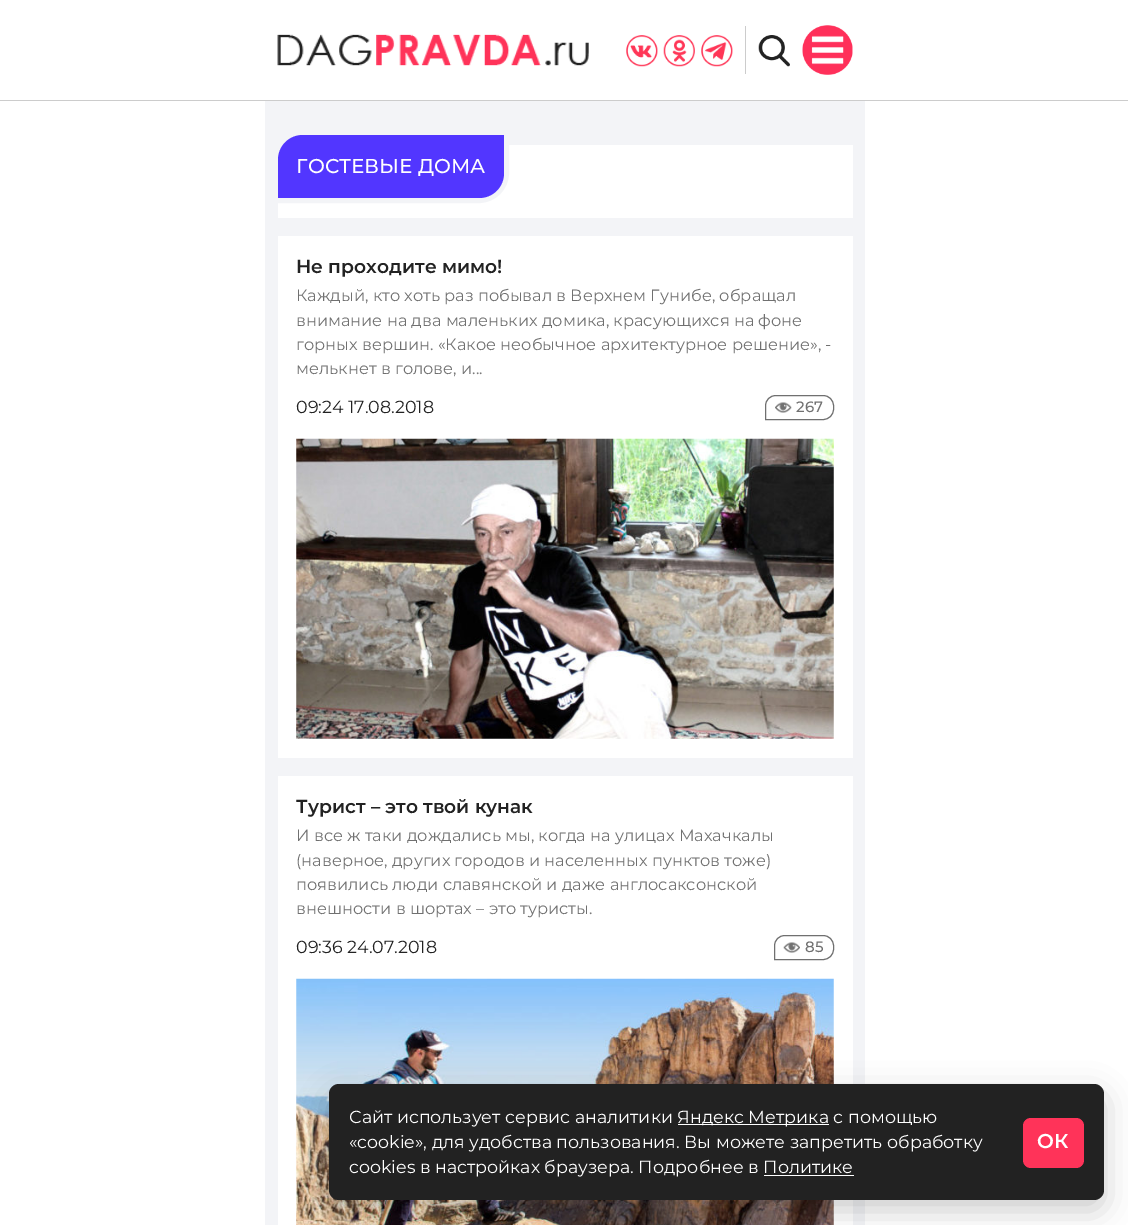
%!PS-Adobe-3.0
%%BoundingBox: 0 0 1128 1225
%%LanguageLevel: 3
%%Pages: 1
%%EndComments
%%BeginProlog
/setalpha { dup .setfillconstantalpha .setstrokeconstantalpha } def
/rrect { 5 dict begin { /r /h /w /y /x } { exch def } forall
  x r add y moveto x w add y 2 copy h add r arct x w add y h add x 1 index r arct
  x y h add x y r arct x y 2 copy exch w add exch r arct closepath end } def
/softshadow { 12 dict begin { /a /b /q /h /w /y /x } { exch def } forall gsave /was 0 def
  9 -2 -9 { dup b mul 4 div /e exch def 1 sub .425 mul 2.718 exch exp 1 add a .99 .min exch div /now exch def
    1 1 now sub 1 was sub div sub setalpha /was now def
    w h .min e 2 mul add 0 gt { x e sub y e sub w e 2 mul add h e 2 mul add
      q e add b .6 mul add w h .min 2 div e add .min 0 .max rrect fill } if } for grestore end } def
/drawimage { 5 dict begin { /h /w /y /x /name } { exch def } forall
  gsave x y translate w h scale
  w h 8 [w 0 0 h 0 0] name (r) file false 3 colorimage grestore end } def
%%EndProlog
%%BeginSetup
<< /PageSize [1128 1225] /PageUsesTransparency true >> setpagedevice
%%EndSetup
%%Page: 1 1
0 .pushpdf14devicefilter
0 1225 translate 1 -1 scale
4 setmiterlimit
1 setgray
0 0 1128 1225 rectfill
0.8 setgray
0 100 1128 1 rectfill
(images/1.raw) 277 34 312 32 drawimage
745 26 1 48 rectfill
(images/2.raw) 626 35 32 32 drawimage
(images/3.raw) 663 35 32 32 drawimage
(images/4.raw) 701 35 32 32 drawimage
(images/5.raw) 758 35 32 32 drawimage
(images/6.raw) 802 25 51 50 drawimage
0.953 0.957 0.969 setrgbcolor
265 101 600 1124 rectfill
1 setgray
278 145 575 73 rectfill
0.953 0.957 0.969 setrgbcolor
5 setlinewidth
newpath 303 132.5 moveto 506.5 132.5 lineto 506.5 173 lineto 506.5 188 494 200.5 479 200.5 curveto 275.5 200.5 lineto 275.5 160 lineto 275.5 145 288 132.5 303 132.5 curveto closepath stroke
0.322 0.212 1 setrgbcolor
newpath 303 135 moveto 504 135 lineto 504 173 lineto 504 187 493 198 479 198 curveto 278 198 lineto 278 160 lineto 278 146 289 135 303 135 curveto closepath fill
1 setgray
278 236 575 522 rectfill
0.439 setgray
1 setlinewidth
newpath 776 395.5 moveto 823 395.5 lineto 829 395.5 833.5 400 833.5 406 curveto 833.5 409 lineto 833.5 415 829 419.5 823 419.5 curveto 765.5 419.5 lineto 765.5 406 lineto 765.5 400 770 395.5 776 395.5 curveto closepath stroke
(images/7.raw) 775 402 17 11 drawimage
(images/8.raw) 296 438 538 301 drawimage
1 setgray
278 776 575 449 rectfill
0.439 setgray
newpath 785 935.5 moveto 823 935.5 lineto 829 935.5 833.5 940 833.5 946 curveto 833.5 949 lineto 833.5 955 829 959.5 823 959.5 curveto 774.5 959.5 lineto 774.5 946 lineto 774.5 940 779 935.5 785 935.5 curveto closepath stroke
(images/9.raw) 783 942 17 11 drawimage
(images/10.raw) 296 978 538 247 drawimage
0 setgray
329 1094 775 116 10 15 0.2 softshadow
0.133 setgray
329 1084 775 116 10 rrect fill
1 setgray
678 1124 151 1 rectfill
764 1175 90 1 rectfill
1 0.2 0.349 setrgbcolor
1023 1118 61 50 8 rrect fill
/Montserrat-Medium [20 0 0 -20 0 0] selectfont
1 setgray
296 173 moveto (ГОСТЕВЫЕ ДОМА) show
/Montserrat-SemiBold [18.75 0 0 -18.75 0 0] selectfont
0.133 setgray
296 273 moveto (Не проходите мимо!) show
/Montserrat-Regular [16.25 0 0 -16.25 0 0] selectfont
0.439 setgray
296 301 moveto (Каждый, кто хоть раз побывал в Верхнем Гунибе, обращал) show
296 326 moveto (внимание на два маленьких домика, красующихся на фоне) show
296 350 moveto (горных вершин. «Какое необычное архитектурное решение», -) show
296 374 moveto (мелькнет в голове, и...) show
/Montserrat-Regular [17.5 0 0 -17.5 0 0] selectfont
0.133 setgray
296 413 moveto (09:24 17.08.2018) show
/Montserrat-Medium [15 0 0 -15 0 0] selectfont
0.439 setgray
796 412 moveto (267) show
/Montserrat-SemiBold [18.75 0 0 -18.75 0 0] selectfont
0.133 setgray
296 813 moveto (Турист – это твой кунак) show
/Montserrat-Regular [16.25 0 0 -16.25 0 0] selectfont
0.439 setgray
296 841 moveto (И все ж таки дождались мы, когда на улицах Махачкалы) show
296 866 moveto (\(наверное, других городов и населенных пунктов тоже\)) show
296 890 moveto (появились люди славянской и даже англосаксонской) show
296 914 moveto (внешности в шортах – это туристы.) show
/Montserrat-Regular [17.5 0 0 -17.5 0 0] selectfont
0.133 setgray
296 953 moveto (09:36 24.07.2018) show
/Montserrat-Medium [15 0 0 -15 0 0] selectfont
0.439 setgray
805 952 moveto (85) show
/Montserrat-Regular [17.5 0 0 -17.5 0 0] selectfont
1 setgray
349 1123 moveto (Сайт использует сервис аналитики) show
677 1123 moveto (Яндекс Метрика с помощью) show
349 1148 moveto («cookie», для удобства пользования. Вы можете запретить обработку) show
349 1173 moveto (cookies в настройках браузера. Подробнее в Политике) show
/Montserrat-SemiBold [20 0 0 -20 0 0] selectfont
1037 1148 moveto (ОК) show
.poppdf14devicefilter showpage
%%EOF
